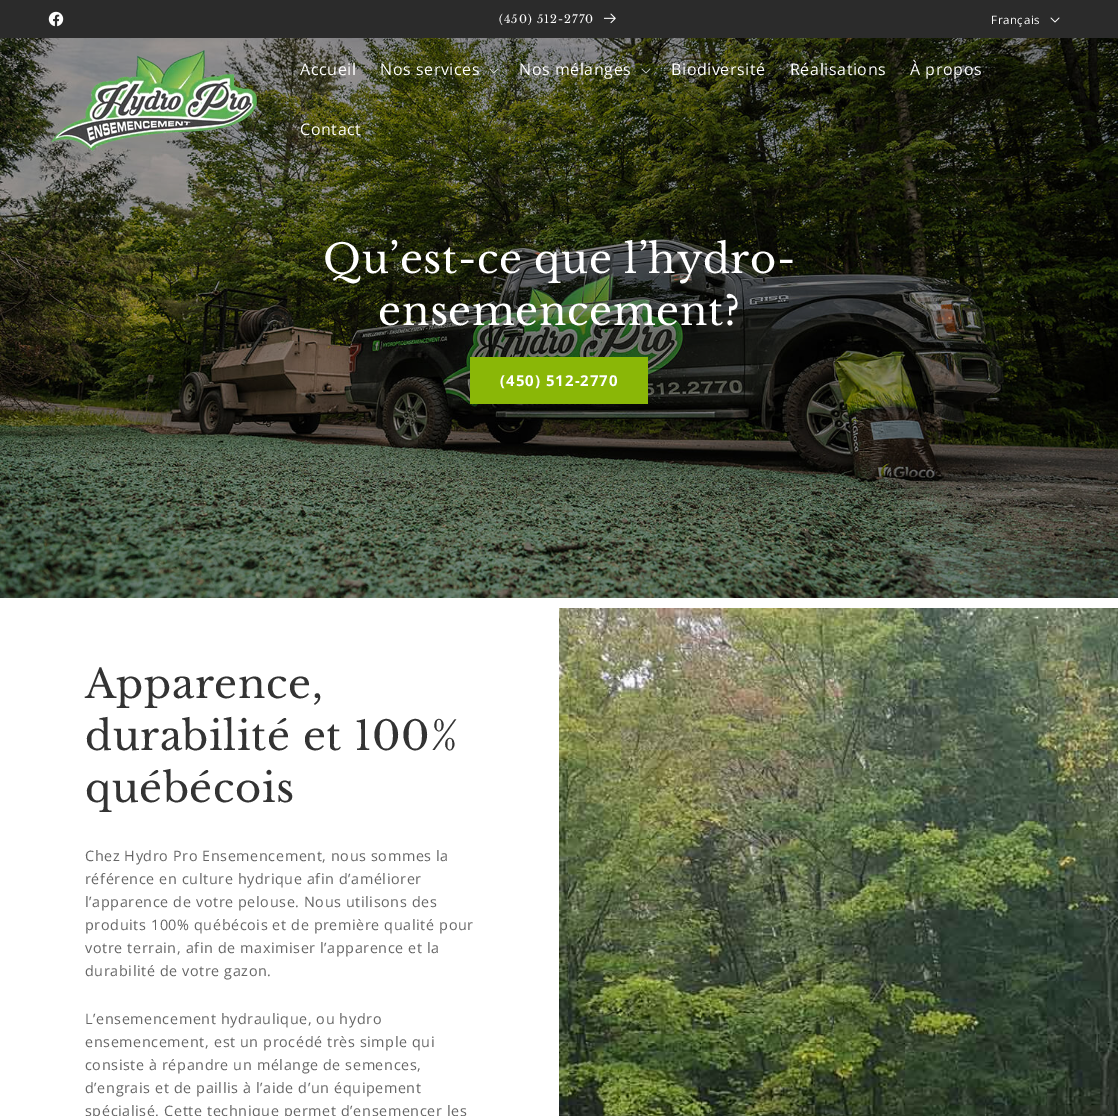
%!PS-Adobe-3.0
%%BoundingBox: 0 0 1118 1116
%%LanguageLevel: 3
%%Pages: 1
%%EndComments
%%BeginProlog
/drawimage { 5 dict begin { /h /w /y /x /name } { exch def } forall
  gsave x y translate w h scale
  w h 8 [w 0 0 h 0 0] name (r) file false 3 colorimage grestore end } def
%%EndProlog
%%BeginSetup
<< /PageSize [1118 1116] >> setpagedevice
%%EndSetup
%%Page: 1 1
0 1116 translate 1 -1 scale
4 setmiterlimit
1 setgray
0 0 1118 1116 rectfill
0.169 setgray
0 0 1118 38 rectfill
(images/1.raw) 48 11 16 16 drawimage
(images/2.raw) 604 13 12 11 drawimage
(images/3.raw) 1050 17 10 6 drawimage
(images/7.raw) 0 38 1118 560 drawimage
(images/4.raw) 51 50 206 101 drawimage
(images/5.raw) 489 68 10 6 drawimage
(images/6.raw) 641 68 10 6 drawimage
0.541 0.718 0.027 setrgbcolor
470 357 178 47 rectfill
(images/8.raw) 559 608 559 508 drawimage
/LibreBaskerville-Regular [11.25 0 0 -11.25 0 0] selectfont
1 setgray
499 23 moveto 1 0 (\(450\) 512-2770) ashow
/OpenSans-Regular [11.5 0 0 -11.5 0 0] selectfont
991 24 moveto 0.6 0 (Français) ashow
/OpenSans-Regular [16 0 0 -16 0 0] selectfont
300 75 moveto 0.6 0 (Accueil) ashow
380 75 moveto 0.6 0 (Nos services) ashow
519 75 moveto 0.6 0 (Nos mélanges) ashow
671 75 moveto 0.6 0 (Biodiversité) ashow
790 75 moveto 0.6 0 (Réalisations) ashow
910 75 moveto 0.6 0 (À propos) ashow
300 135 moveto 0.6 0 (Contact) ashow
/LibreBaskerville-Regular [40 0 0 -40 0 0] selectfont
323 273 moveto 0.6 0 (Qu’est-ce que l’hydro-) ashow
378 325 moveto 0.6 0 (ensemencement?) ashow
/OpenSans-Bold [15 0 0 -15 0 0] selectfont
500 386 moveto 1 0 (\(450\) 512-2770) ashow
/LibreBaskerville-Regular [40 0 0 -40 0 0] selectfont
0.2 setgray
85 698 moveto 0.6 0 (Apparence,) ashow
85 750 moveto 0.6 0 (durabilité et 100%) ashow
85 802 moveto 0.6 0 (québécois) ashow
/OpenSans-Regular [14.4 0 0 -14.4 0 0] selectfont
0.4 setgray
85 861 moveto 0.6 0 (Chez Hydro Pro Ensemencement, nous sommes la) ashow
85 884 moveto 0.6 0 (référence en culture hydrique afin d’améliorer) ashow
85 907 moveto 0.6 0 (l’apparence de votre pelouse. Nous utilisons des) ashow
85 930 moveto 0.6 0 (produits 100% québécois et de première qualité pour) ashow
85 953 moveto 0.6 0 (votre terrain, afin de maximiser l’apparence et la) ashow
85 976 moveto 0.6 0 (durabilité de votre gazon.) ashow
85 1024 moveto 0.6 0 (L’ensemencement hydraulique, ou hydro) ashow
85 1047 moveto 0.6 0 (ensemencement, est un procédé très simple qui) ashow
85 1070 moveto 0.6 0 (consiste à répandre un mélange de semences,) ashow
85 1093 moveto 0.6 0 (d’engrais et de paillis à l’aide d’un équipement) ashow
85 1116 moveto 0.6 0 (spécialisé. Cette technique permet d’ensemencer les) ashow
showpage
%%EOF
